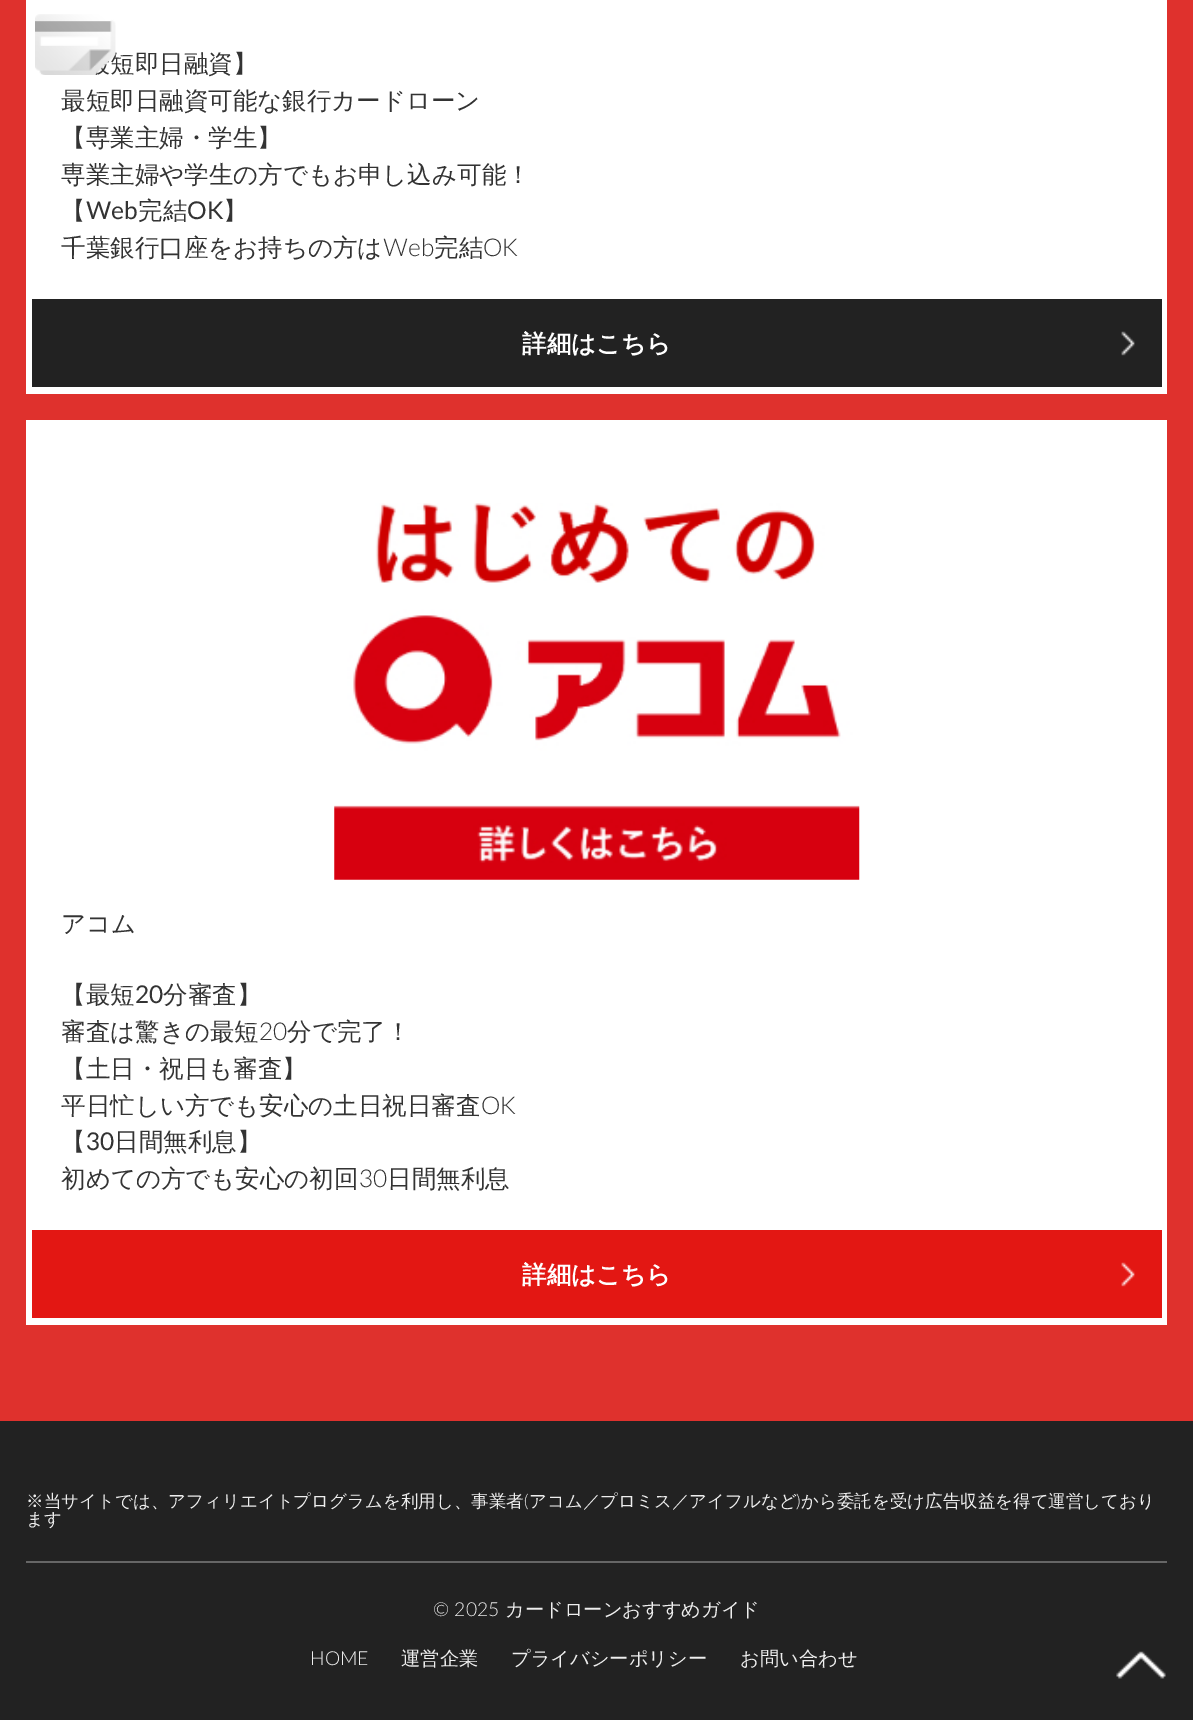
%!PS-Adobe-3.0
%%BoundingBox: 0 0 1193 1720
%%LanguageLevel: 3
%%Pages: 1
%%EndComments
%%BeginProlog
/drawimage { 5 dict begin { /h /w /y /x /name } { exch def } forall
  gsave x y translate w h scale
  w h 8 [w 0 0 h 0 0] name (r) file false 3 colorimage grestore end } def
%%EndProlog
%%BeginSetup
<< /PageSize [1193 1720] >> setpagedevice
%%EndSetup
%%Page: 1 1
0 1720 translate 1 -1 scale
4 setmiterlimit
0.875 0.192 0.176 setrgbcolor
0 0 1193 1720 rectfill
1 setgray
26 0 1141 394 rectfill
0.133 setgray
32 299 1130 88 rectfill
(images/2.raw) 1121 331 14 25 drawimage
1 setgray
26 420 1141 905 rectfill
(images/3.raw) 334 503 526 377 drawimage
0.89 0.09 0.075 setrgbcolor
32 1230 1130 88 rectfill
(images/4.raw) 1121 1262 14 25 drawimage
0.133 setgray
0 1421 1193 299 rectfill
0.4 setgray
26 1561 1141 2 rectfill
(images/5.raw) 1116 1651 50 28 drawimage
/WenQuanYiZenHei-Medium [24.5 0 0 -24.5 0 0] selectfont
0.2 setgray
110 72 moveto (短即日融資】) show
(images/1.raw) 35 14 81 61 drawimage
61 109 moveto (最短即日融資可能な銀行カードローン) show
61 146 moveto (【専業主婦・学生】) show
61 183 moveto (専業主婦や学生の方でもお申し込み可能！) show
61 219 moveto (【) show
/Lato-Regular [24.5 0 0 -24.5 0 0] selectfont
86 219 moveto (Web) show
/WenQuanYiZenHei-Medium [24.5 0 0 -24.5 0 0] selectfont
138 219 moveto (完結) show
/Lato-Regular [24.5 0 0 -24.5 0 0] selectfont
187 219 moveto (OK) show
/WenQuanYiZenHei-Medium [24.5 0 0 -24.5 0 0] selectfont
223 219 moveto (】) show
61 256 moveto (千葉銀行口座をお持ちの方は) show
/Lato-Light [24.5 0 0 -24.5 0 0] selectfont
383 256 moveto (Web) show
/WenQuanYiZenHei-Medium [24.5 0 0 -24.5 0 0] selectfont
434 256 moveto (完結) show
/Lato-Light [24.5 0 0 -24.5 0 0] selectfont
483 256 moveto (OK) show
/WenQuanYiZenHei-Bold [24.5 0 0 -24.5 0 0] selectfont
1 setgray
522 352 moveto (詳細はこちら) show
/WenQuanYiZenHei-Medium [24.5 0 0 -24.5 0 0] selectfont
0.2 setgray
61 932 moveto (アコム) show
61 1003 moveto (【最短) show
/Lato-Regular [24.5 0 0 -24.5 0 0] selectfont
135 1003 moveto (20) show
/WenQuanYiZenHei-Medium [24.5 0 0 -24.5 0 0] selectfont
163 1003 moveto (分審査】) show
61 1040 moveto (審査は驚きの最短) show
/Lato-Light [24.5 0 0 -24.5 0 0] selectfont
259 1040 moveto (20) show
/WenQuanYiZenHei-Medium [24.5 0 0 -24.5 0 0] selectfont
287 1040 moveto (分で完了！) show
61 1077 moveto (【土日・祝日も審査】) show
61 1114 moveto (平日忙しい方でも安心の土日祝日審査) show
/Lato-Light [24.5 0 0 -24.5 0 0] selectfont
481 1114 moveto (OK) show
/WenQuanYiZenHei-Medium [24.5 0 0 -24.5 0 0] selectfont
61 1150 moveto (【) show
/Lato-Regular [24.5 0 0 -24.5 0 0] selectfont
86 1150 moveto (30) show
/WenQuanYiZenHei-Medium [24.5 0 0 -24.5 0 0] selectfont
114 1150 moveto (日間無利息】) show
61 1187 moveto (初めての方でも安心の初回) show
/Lato-Light [24.5 0 0 -24.5 0 0] selectfont
359 1187 moveto (30) show
/WenQuanYiZenHei-Medium [24.5 0 0 -24.5 0 0] selectfont
387 1187 moveto (日間無利息) show
/WenQuanYiZenHei-Bold [24.5 0 0 -24.5 0 0] selectfont
1 setgray
522 1283 moveto (詳細はこちら) show
/WenQuanYiZenHei-Medium [17.5 0 0 -17.5 0 0] selectfont
0.933 setgray
26 1507 moveto (※当サイトでは、アフィリエイトプログラムを利用し、事業者) show
/Lato-Light [17.5 0 0 -17.5 0 0] selectfont
524 1507 moveto (\() show
/WenQuanYiZenHei-Medium [17.5 0 0 -17.5 0 0] selectfont
529 1507 moveto (アコム／プロミス／アイフルなど) show
/Lato-Light [17.5 0 0 -17.5 0 0] selectfont
796 1507 moveto (\)) show
/WenQuanYiZenHei-Medium [17.5 0 0 -17.5 0 0] selectfont
801 1507 moveto (から委託を受け広告収益を得て運営しており) show
26 1525 moveto (ます) show
/Lato-Light [19.25 0 0 -19.25 0 0] selectfont
433 1616 moveto (© 2025) show
/WenQuanYiZenHei-Medium [19.25 0 0 -19.25 0 0] selectfont
505 1616 moveto (カードローンおすすめガイド) show
/Lato-Light [19.25 0 0 -19.25 0 0] selectfont
310 1665 moveto (HOME) show
/WenQuanYiZenHei-Medium [19.25 0 0 -19.25 0 0] selectfont
401 1665 moveto (運営企業) show
511 1665 moveto (プライバシーポリシー) show
740 1665 moveto (お問い合わせ) show
showpage
%%EOF
